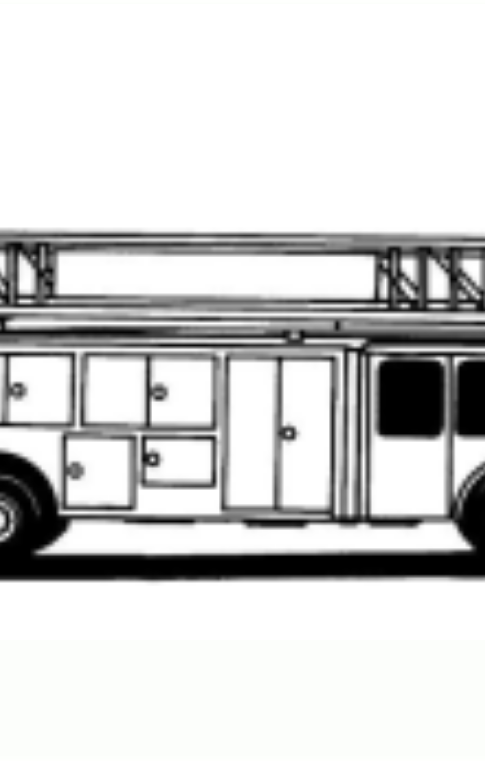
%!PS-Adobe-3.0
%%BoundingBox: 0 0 485 761
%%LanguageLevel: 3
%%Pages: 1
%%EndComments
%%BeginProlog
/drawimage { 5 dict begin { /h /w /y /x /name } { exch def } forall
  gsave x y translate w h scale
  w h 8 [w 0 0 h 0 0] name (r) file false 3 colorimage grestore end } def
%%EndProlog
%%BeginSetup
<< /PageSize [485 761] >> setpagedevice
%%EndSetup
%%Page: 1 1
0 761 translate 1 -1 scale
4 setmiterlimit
1 setgray
0 0 485 761 rectfill
(images/1.raw) 0 0 485 761 drawimage
(images/2.raw) 0 4 485 636 drawimage
(images/3.raw) 0 227 485 359 drawimage
showpage
%%EOF
